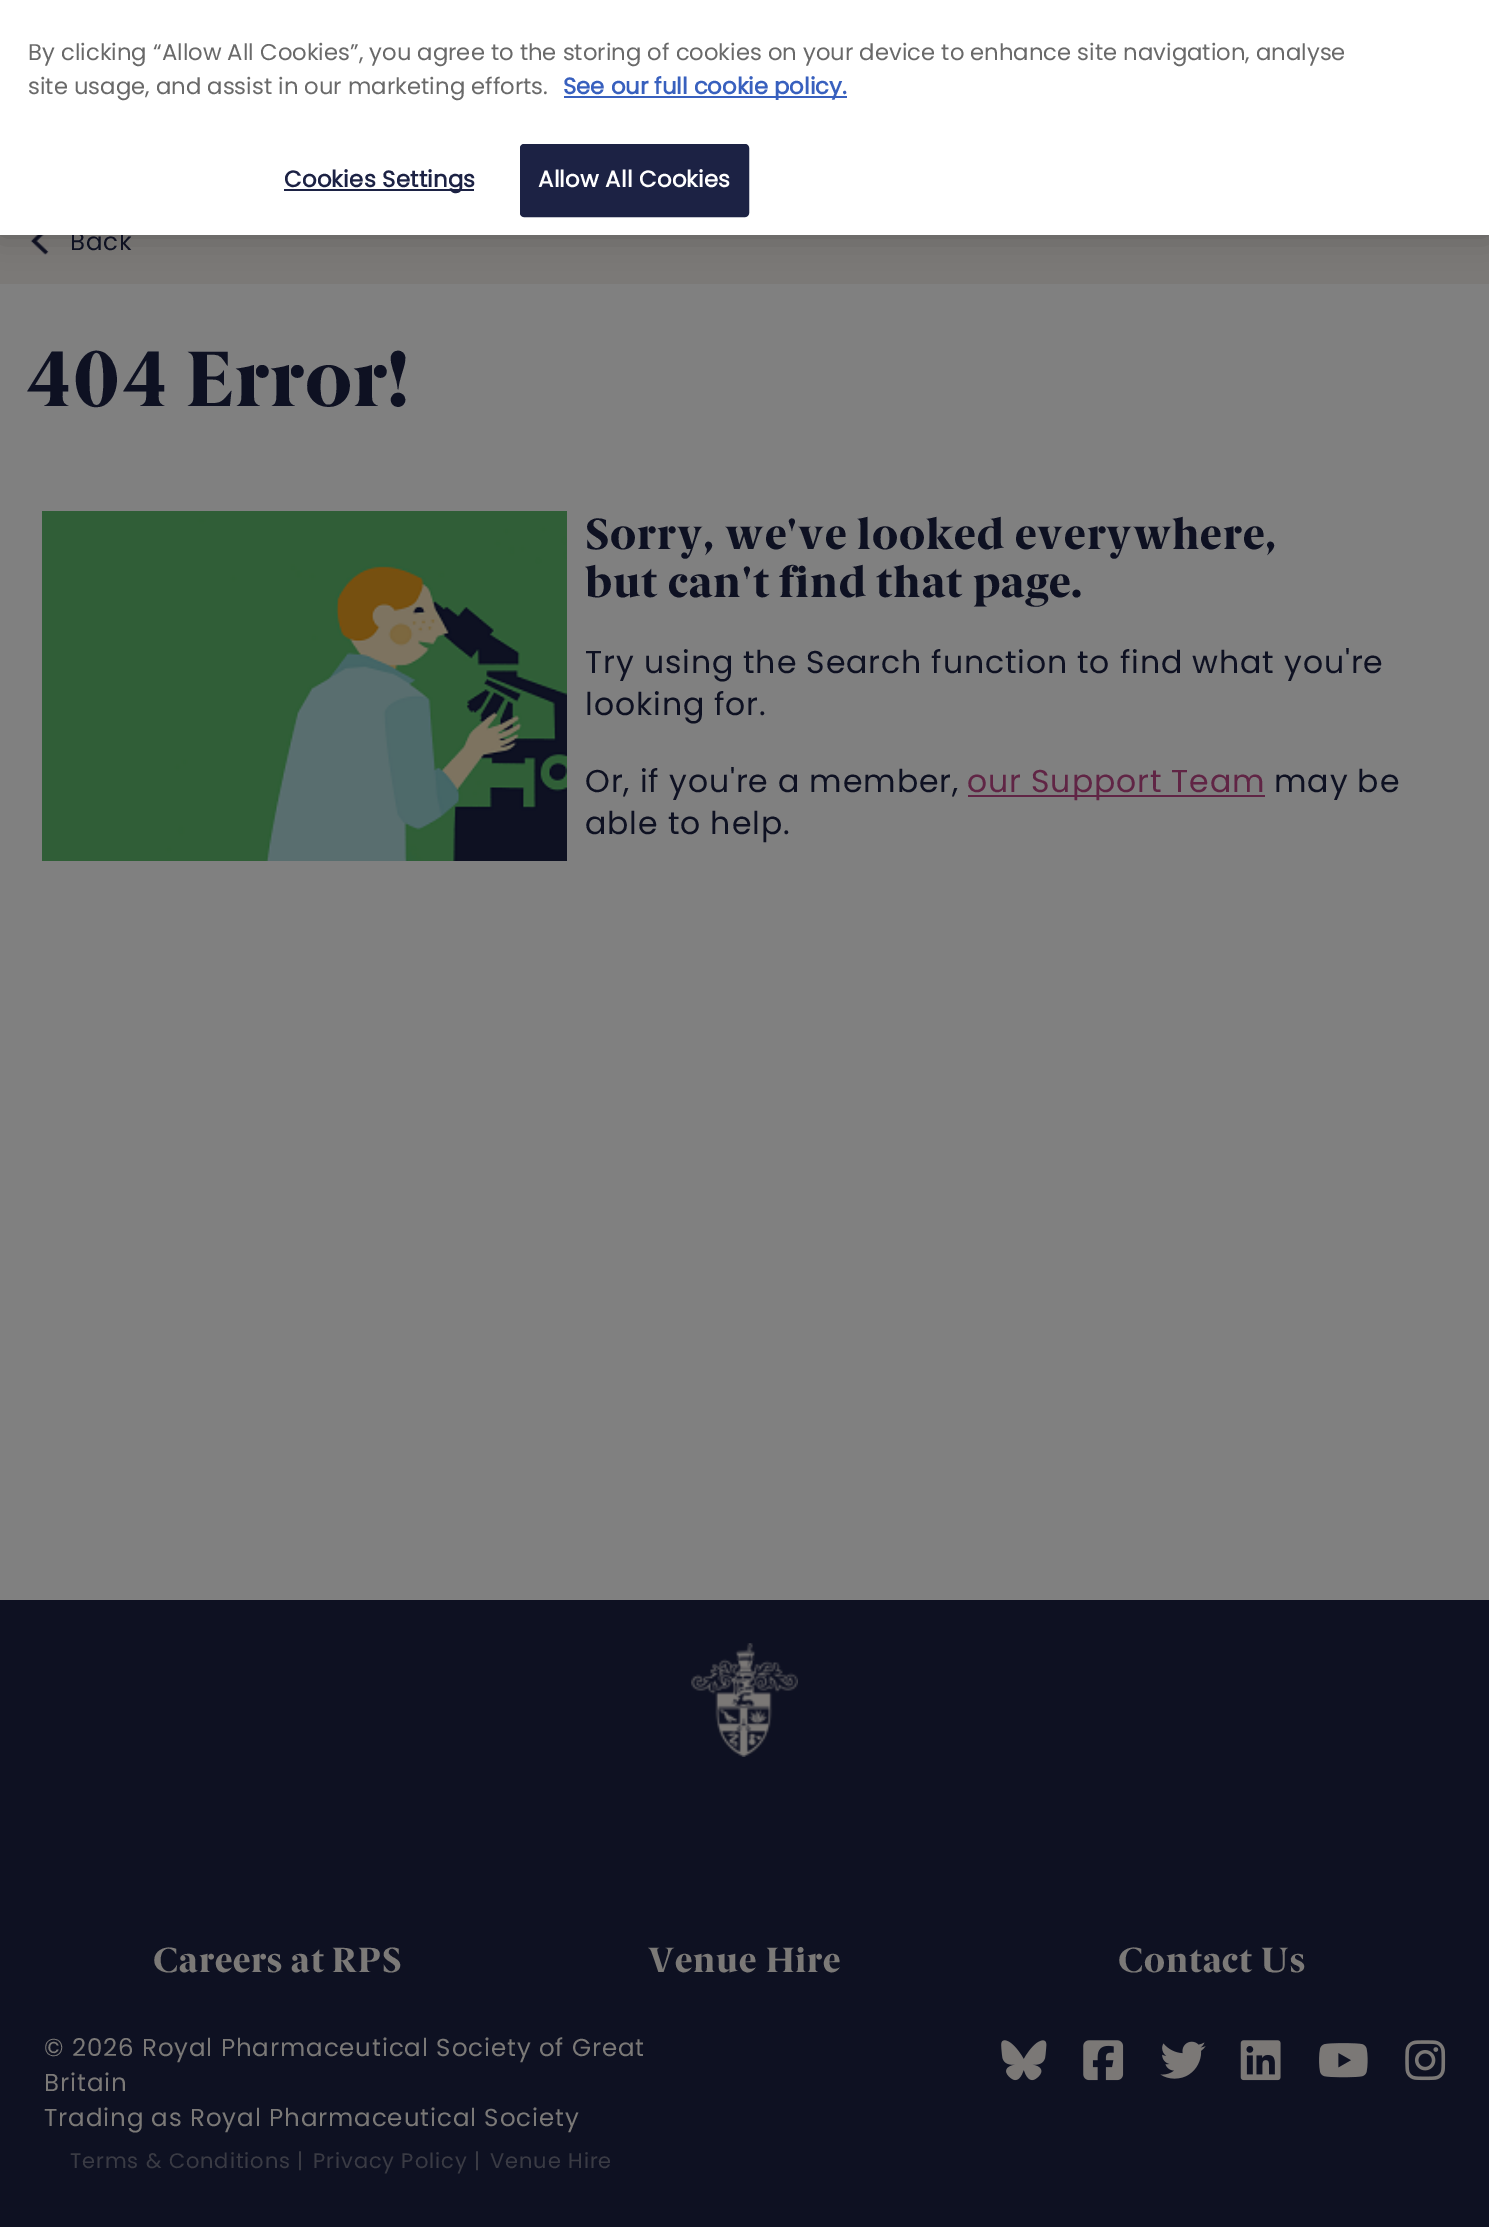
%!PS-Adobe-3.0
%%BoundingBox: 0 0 1489 2227
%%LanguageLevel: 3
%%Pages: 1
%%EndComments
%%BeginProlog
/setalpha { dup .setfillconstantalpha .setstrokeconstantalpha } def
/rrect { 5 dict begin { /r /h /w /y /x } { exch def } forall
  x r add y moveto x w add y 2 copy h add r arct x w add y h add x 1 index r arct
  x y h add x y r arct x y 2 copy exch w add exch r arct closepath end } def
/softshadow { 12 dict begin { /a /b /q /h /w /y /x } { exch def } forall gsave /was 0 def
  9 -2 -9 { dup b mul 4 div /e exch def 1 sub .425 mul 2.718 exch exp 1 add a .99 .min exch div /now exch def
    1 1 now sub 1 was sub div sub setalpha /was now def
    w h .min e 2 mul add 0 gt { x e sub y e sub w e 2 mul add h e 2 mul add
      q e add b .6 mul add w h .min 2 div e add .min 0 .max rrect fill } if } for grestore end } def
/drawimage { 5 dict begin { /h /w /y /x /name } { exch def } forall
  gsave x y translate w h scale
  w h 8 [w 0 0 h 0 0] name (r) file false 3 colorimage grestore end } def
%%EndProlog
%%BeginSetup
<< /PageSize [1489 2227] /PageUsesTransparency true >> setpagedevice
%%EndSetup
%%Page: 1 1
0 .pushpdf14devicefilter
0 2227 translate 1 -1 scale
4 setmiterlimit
0.502 setgray
0 0 1489 2227 rectfill
0.482 0.475 0.467 setrgbcolor
0 235 1489 49 rectfill
(images/1.raw) 30 235 19 20 drawimage
0 setgray
0 0 1489 235 0 16 0.2 softshadow
(images/2.raw) 42 511 525 350 drawimage
0.376 0.145 0.271 setrgbcolor
968 795 297 2 rectfill
0.055 0.067 0.133 setrgbcolor
0 1600 1489 627 rectfill
(images/3.raw) 691 1643 107 114 drawimage
(images/4.raw) 1001 2040 46 41 drawimage
(images/5.raw) 1083 2040 41 41 drawimage
(images/6.raw) 1160 2041 46 38 drawimage
(images/7.raw) 1240 2040 41 41 drawimage
(images/8.raw) 1319 2043 49 35 drawimage
(images/9.raw) 1405 2040 41 41 drawimage
/Poppins-Regular [24.5 0 0 -24.5 0 0] selectfont
70 250 moveto 0.9 0 (Back) ashow
1 setgray
0 0 1489 235 rectfill
0.11 0.133 0.267 setrgbcolor
521 145 227 71 3 rrect gsave fill grestore
2 setlinewidth
stroke
/Poppins-Bold [22.75 0 0 -22.75 0 0] selectfont
1 setgray
538 187 moveto 0.25 0 (Allow All Cookies) ashow
0.11 0.133 0.267 setrgbcolor
284 189 190 2 rectfill
284 187 moveto 0.25 0 (Cookies Settings) ashow
0.22 0.376 0.745 setrgbcolor
564 96 283 2 rectfill
563 94 moveto (See our full cookie policy.) show
/Poppins-Regular [22.75 0 0 -22.75 0 0] selectfont
0.412 setgray
28 94 moveto (site usage, and assist in our marketing efforts.) show
28 60 moveto (By clicking “Allow All Cookies”, you agree to the storing of cookies on your device to enhance site navigation, analyse) show
/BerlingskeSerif-ExtraBold [78.75 0 0 -78.75 0 0] selectfont
0.055 0.067 0.133 setrgbcolor
25 406 moveto 0.9 0 (404 Error!) ashow
/BerlingskeSerif-ExtraBold [43.75 0 0 -43.75 0 0] selectfont
585 549 moveto 0.9 0 (Sorry, we've looked everywhere,) ashow
585 597 moveto 0.9 0 (but can't find that page.) ashow
/Poppins-Regular [31.5 0 0 -31.5 0 0] selectfont
585 673 moveto 0.9 0 (Try using the Search function to find what you're) ashow
585 715 moveto 0.9 0 (looking for.) ashow
585 792 moveto 0.9 0 (Or, if you're a member,) ashow
0.376 0.145 0.271 setrgbcolor
967 792 moveto 0.9 0 (our Support Team) ashow
0.055 0.067 0.133 setrgbcolor
1274 792 moveto 0.9 0 (may be) ashow
585 834 moveto 0.9 0 (able to help.) ashow
/BerlingskeSerif-ExtraBold [35 0 0 -35 0 0] selectfont
0.482 0.475 0.467 setrgbcolor
153 1972 moveto 0.9 0 (Careers at RPS) ashow
648 1972 moveto 0.9 0 (Venue Hire) ashow
1118 1972 moveto 0.9 0 (Contact Us) ashow
/Poppins-Regular [24.5 0 0 -24.5 0 0] selectfont
44 2056 moveto 0.9 0 (© 2026 Royal Pharmaceutical Society of Great) ashow
44 2091 moveto 0.9 0 (Britain) ashow
44 2126 moveto 0.9 0 (Trading as Royal Pharmaceutical Society) ashow
/Poppins-Regular [21 0 0 -21 0 0] selectfont
0.227 0.231 0.267 setrgbcolor
70 2168 moveto 0.9 0 (Terms & Conditions |) ashow
313 2168 moveto 0.9 0 (Privacy Policy |) ashow
490 2168 moveto 0.9 0 (Venue Hire) ashow
.poppdf14devicefilter showpage
%%EOF
